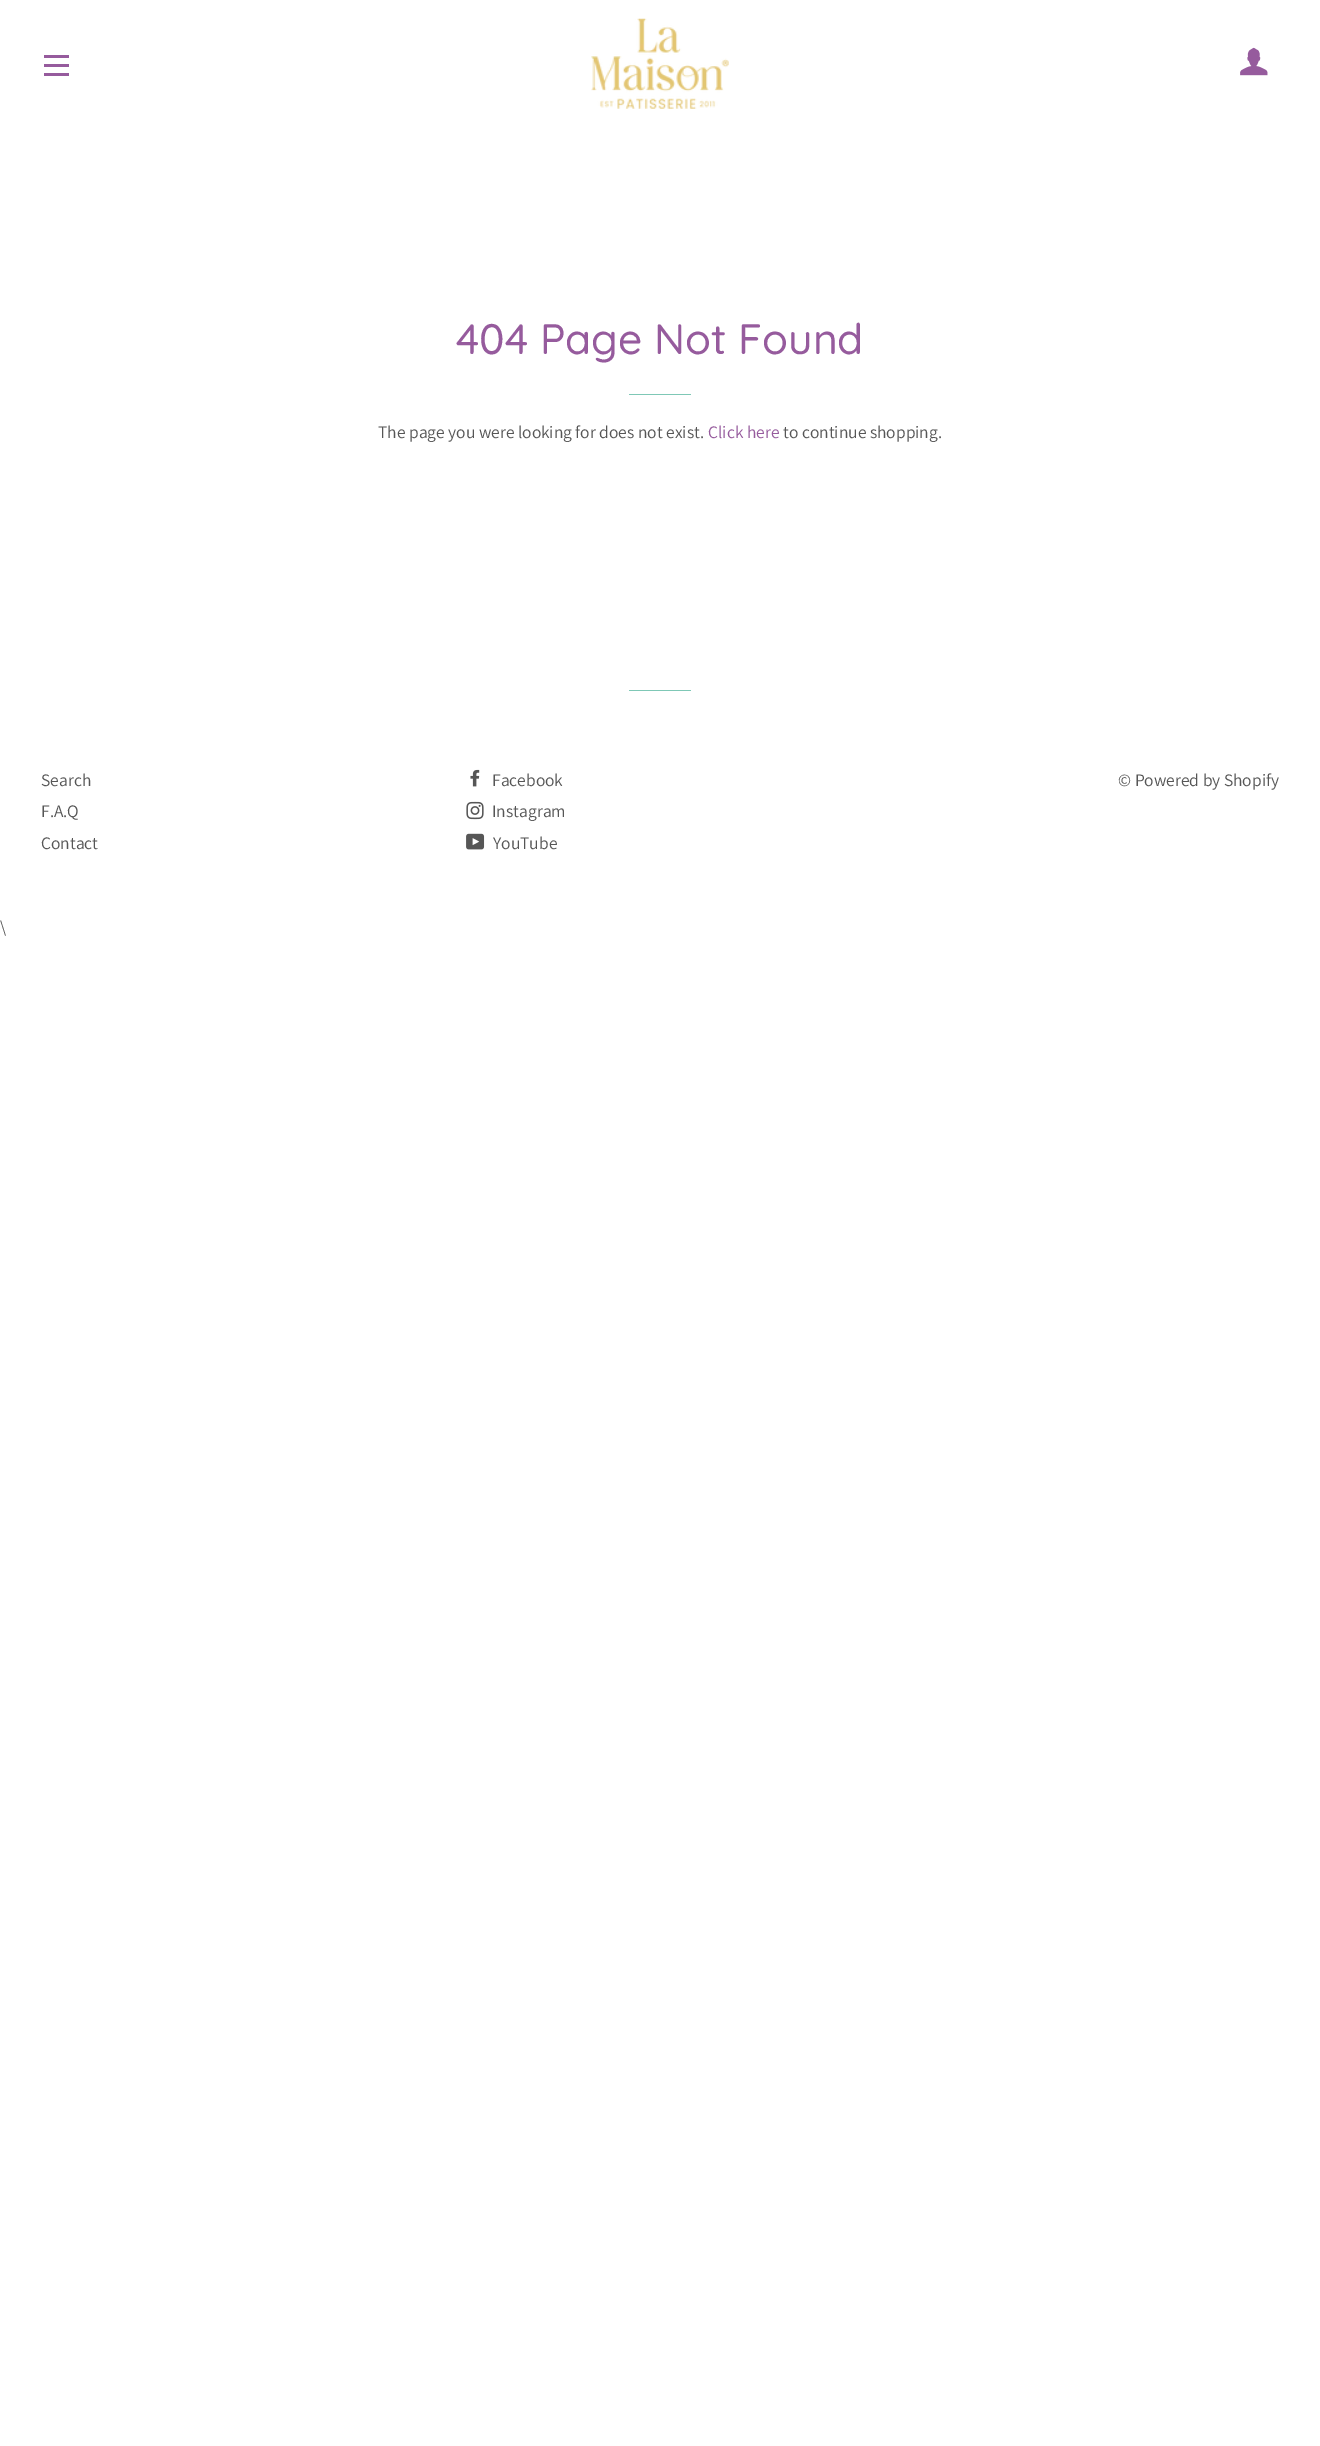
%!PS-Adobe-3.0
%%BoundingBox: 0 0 1320 2446
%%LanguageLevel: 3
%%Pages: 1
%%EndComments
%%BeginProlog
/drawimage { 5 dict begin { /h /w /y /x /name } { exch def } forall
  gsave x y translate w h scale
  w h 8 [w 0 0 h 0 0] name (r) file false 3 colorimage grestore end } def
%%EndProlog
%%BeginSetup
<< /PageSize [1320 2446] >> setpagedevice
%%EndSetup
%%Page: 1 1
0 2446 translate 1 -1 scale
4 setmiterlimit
1 setgray
0 0 1320 2446 rectfill
0.588 0.357 0.616 setrgbcolor
44 55 25 3 rectfill
44 64 25 3 rectfill
44 73 25 3 rectfill
(images/1.raw) 591 18 138 91 drawimage
(images/2.raw) 1240 47 28 29 drawimage
0.498 0.784 0.714 setrgbcolor
629 394 62 1 rectfill
629 690 62 1 rectfill
(images/3.raw) 470 769 10 18 drawimage
(images/4.raw) 466 801 18 19 drawimage
(images/5.raw) 466 833 19 17 drawimage
/Quicksand-Medium [42.5 0 0 -42.5 0 0] selectfont
0.588 0.357 0.616 setrgbcolor
456 354 moveto (404 Page Not Found) show
/Assistant-ExtraLight [17.5 0 0 -17.5 0 0] selectfont
0.337 setgray
378 438 moveto (The page you were looking for does not exist.) show
0.588 0.357 0.616 setrgbcolor
708 438 moveto (Click here) show
0.337 setgray
783 438 moveto (to continue shopping.) show
41 786 moveto (Search) show
41 817 moveto (F.A.Q) show
41 849 moveto (Contact) show
492 786 moveto (Facebook) show
492 817 moveto (Instagram) show
493 849 moveto (YouTube) show
1118 786 moveto (© Powered by Shopify) show
0 933 moveto (\\) show
showpage
%%EOF
